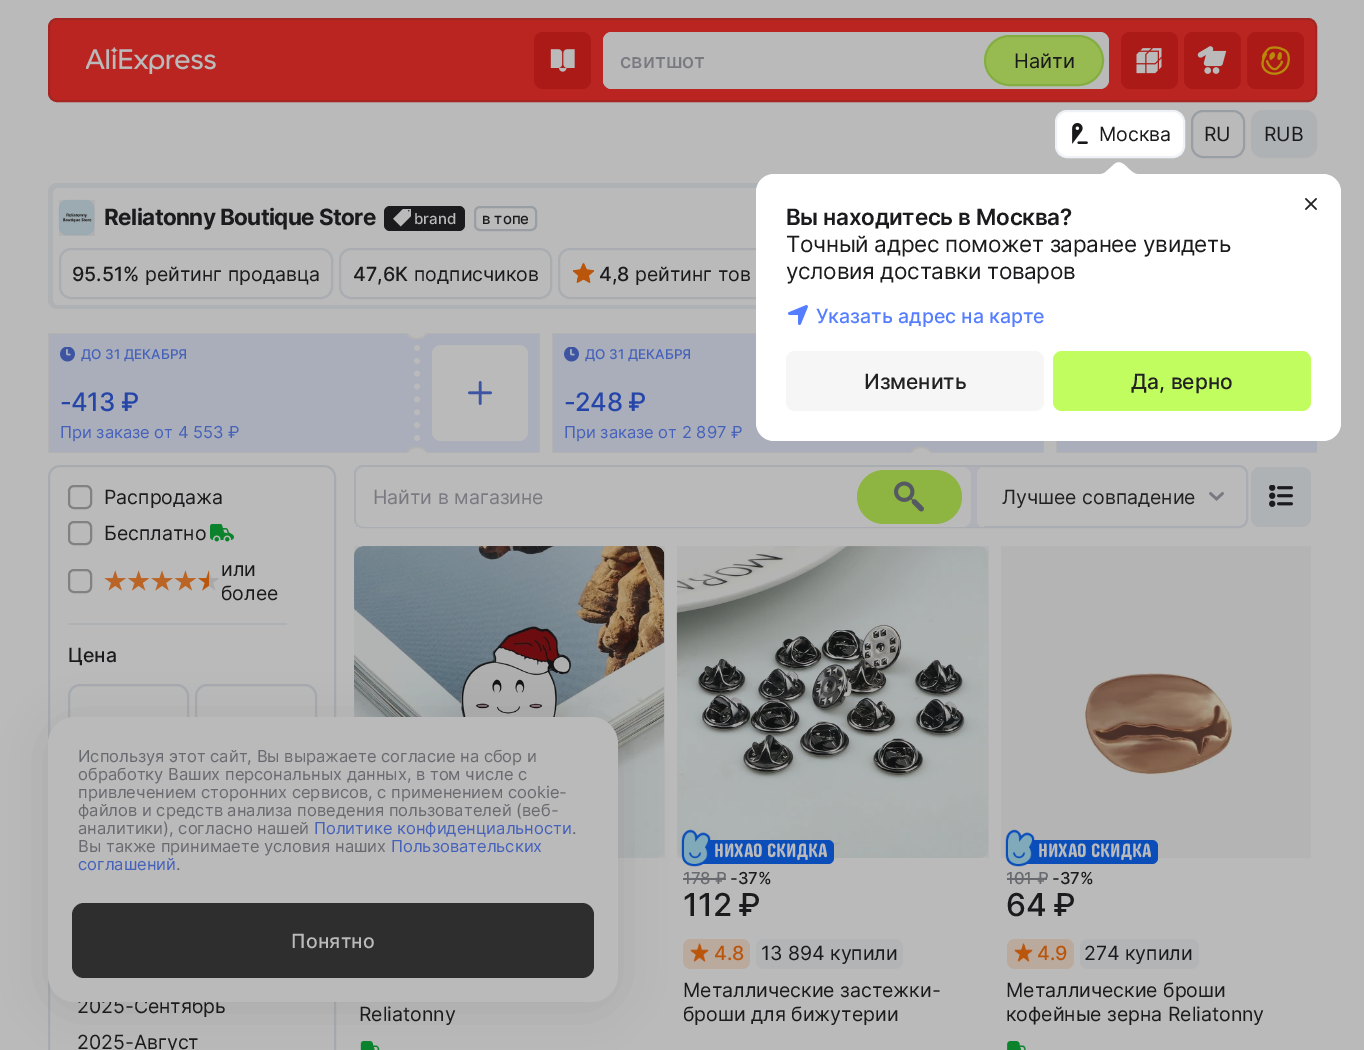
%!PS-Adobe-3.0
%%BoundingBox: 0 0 1364 1050
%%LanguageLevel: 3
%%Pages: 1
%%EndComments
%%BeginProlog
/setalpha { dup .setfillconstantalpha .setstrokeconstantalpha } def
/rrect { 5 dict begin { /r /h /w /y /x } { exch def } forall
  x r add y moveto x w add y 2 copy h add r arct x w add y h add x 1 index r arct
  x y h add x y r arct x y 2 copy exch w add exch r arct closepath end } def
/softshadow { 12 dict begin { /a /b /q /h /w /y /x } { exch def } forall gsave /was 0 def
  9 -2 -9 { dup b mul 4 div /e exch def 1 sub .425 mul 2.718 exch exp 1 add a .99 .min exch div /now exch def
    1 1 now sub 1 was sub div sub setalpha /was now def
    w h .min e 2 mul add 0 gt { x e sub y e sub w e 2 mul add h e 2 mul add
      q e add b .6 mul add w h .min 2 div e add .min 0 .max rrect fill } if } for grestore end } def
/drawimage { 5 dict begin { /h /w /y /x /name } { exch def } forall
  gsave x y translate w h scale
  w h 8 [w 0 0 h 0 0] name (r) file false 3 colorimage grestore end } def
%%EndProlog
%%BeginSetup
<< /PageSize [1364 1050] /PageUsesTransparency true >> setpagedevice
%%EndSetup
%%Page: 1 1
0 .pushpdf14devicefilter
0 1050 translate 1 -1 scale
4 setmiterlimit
0.729 setgray
0 0 1364 1050 rectfill
0.729 0.145 0.133 setrgbcolor
49 19 1267 82 8 rrect gsave fill grestore
0.643 0.145 0.133 setrgbcolor
2 setlinewidth
stroke
(images/1.raw) 86 47 130 27 drawimage
0.671 0.102 0.086 setrgbcolor
534 32 57 57 9 rrect fill
(images/2.raw) 550 49 25 23 drawimage
0.729 setgray
603 32 506 57 9 rrect fill
603 32 381 57 9 rrect fill
0.592 0.729 0.318 setrgbcolor
985 36 118 49 24.5 rrect gsave fill grestore
0.522 0.682 0.259 setrgbcolor
stroke
0.671 0.102 0.086 setrgbcolor
1121 32 57 57 9 rrect fill
(images/3.raw) 1136 48 26 26 drawimage
1184 32 57 57 9 rrect fill
(images/4.raw) 1197 46 30 28 drawimage
1247 32 57 57 9 rrect fill
(images/5.raw) 1261 46 29 29 drawimage
1 setgray
1056 111 128 46 11 rrect gsave fill grestore
0.933 0.949 0.965 setrgbcolor
stroke
(images/6.raw) 1072 123 16 21 drawimage
0.596 0.62 0.643 setrgbcolor
1192 111 52 46 11 rrect stroke
0.686 0.698 0.706 setrgbcolor
1252 111 64 46 11 rrect gsave fill grestore
stroke
48 183 1269 126 9 rrect fill
0.729 setgray
53 188 1260 117 6 rrect fill
(images/7.raw) 58 199 37 37 drawimage
0.06 setalpha
0.133 setgray
59 200 36 36 rectfill
1 setalpha
0.106 0.106 0.114 setrgbcolor
384 206 81 25 6 rrect fill
(images/8.raw) 393 209 18 18 drawimage
0.596 0.62 0.643 setrgbcolor
475 207 61 23 5 rrect stroke
0.663 0.675 0.69 setrgbcolor
60 249 272 49 11 rrect stroke
340 249 211 49 11 rrect stroke
559 249 250 49 11 rrect stroke
(images/9.raw) 573 263 21 20 drawimage
0.698 setgray
48 452 354 1 rectfill
0.667 0.682 0.729 setrgbcolor
48 333 354 119 rectfill
gsave
48 333 354 119 rectclip
0.698 setgray
1.5 setlinewidth
newpath 48 333 moveto 948 333 lineto 948 453 lineto 48 453 lineto closepath stroke
grestore
gsave
402 333 138 120 rectclip
newpath 407 333 moveto 48 333 lineto 48 453 lineto 407 453 lineto 411 445 423 445 427 453 curveto 540 453 lineto 540 333 lineto 427 333 lineto 423 341 411 341 407 333 curveto closepath gsave fill grestore
0.698 setgray
1.5 setlinewidth
stroke
grestore
(images/10.raw) 60 347 15 15 drawimage
(images/11.raw) 414 345 6 96 drawimage
0.729 setgray
432 345 96 96 9 rrect fill
(images/12.raw) 468 381 24 24 drawimage
0.698 setgray
552 452 354 1 rectfill
0.667 0.682 0.729 setrgbcolor
552 333 354 119 rectfill
gsave
552 333 354 119 rectclip
0.698 setgray
1.5 setlinewidth
newpath 552 333 moveto 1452 333 lineto 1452 453 lineto 552 453 lineto closepath stroke
grestore
gsave
906 333 138 120 rectclip
newpath 911 333 moveto 552 333 lineto 552 453 lineto 911 453 lineto 915 445 927 445 931 453 curveto 1044 453 lineto 1044 333 lineto 931 333 lineto 927 341 915 341 911 333 curveto closepath gsave fill grestore
0.698 setgray
1.5 setlinewidth
stroke
grestore
(images/10.raw) 564 347 15 15 drawimage
0.698 setgray
1056 452 261 1 rectfill
0.667 0.682 0.729 setrgbcolor
1056 441 261 11 rectfill
gsave
1056 333 261 119 rectclip
0.698 setgray
1.5 setlinewidth
newpath 1056 333 moveto 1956 333 lineto 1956 453 lineto 1056 453 lineto closepath stroke
grestore
0.655 0.671 0.686 setrgbcolor
49 466 286 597 11 rrect stroke
0.502 0.51 0.518 setrgbcolor
69 486 22 22 5 rrect stroke
69 522 22 22 5 rrect stroke
(images/13.raw) 210 524 24 18 drawimage
69 570 22 22 5 rrect stroke
(images/14.raw) 104 570 116 21 drawimage
0.686 0.698 0.706 setrgbcolor
68 623 219 2 rectfill
0.655 0.671 0.686 setrgbcolor
69 685 119 52 11 rrect stroke
196 685 120 52 11 rrect stroke
0.663 0.675 0.69 setrgbcolor
355 466 892 61 8 rrect stroke
0.69 0.694 0.722 setrgbcolor
356 467 628 60 rectfill
0.729 setgray
356 467 615 60 9 rrect fill
0.557 0.706 0.259 setrgbcolor
857 470 105 54 27 rrect fill
(images/15.raw) 894 481 30 31 drawimage
0.729 setgray
newpath 984 467 moveto 984 527 lineto 980 527 977 524 977 520 curveto 977 474 lineto 977 470 980 467 984 467 curveto closepath fill
(images/16.raw) 1209 492 15 9 drawimage
0.686 0.698 0.706 setrgbcolor
1251 467 60 60 9 rrect fill
(images/17.raw) 1269 485 24 22 drawimage
(images/18.raw) 354 546 311 312 drawimage
0.04 setalpha
0.106 0.106 0.114 setrgbcolor
354 546 311 312 rectfill
1 setalpha
(images/19.raw) 360 1041 20 9 drawimage
(images/20.raw) 676 546 312 312 drawimage
0.04 setalpha
677 546 312 312 rectfill
1 setalpha
0.043 0.306 0.729 setrgbcolor
683 840 151 24 6 rrect fill
(images/21.raw) 681 829 30 38 drawimage
0.412 0.412 0.439 setrgbcolor
683 878 43 2 rectfill
0.729 0.663 0.616 setrgbcolor
683 939 67 30 8 rrect fill
(images/22.raw) 690 943 19 19 drawimage
0.698 0.706 0.714 setrgbcolor
756 939 147 30 8 rrect fill
(images/23.raw) 1084 673 149 102 drawimage
0.04 setalpha
0.106 0.106 0.114 setrgbcolor
1001 546 310 312 rectfill
1 setalpha
0.043 0.306 0.729 setrgbcolor
1007 840 151 24 6 rrect fill
(images/24.raw) 1005 829 30 38 drawimage
0.412 0.412 0.439 setrgbcolor
1007 878 40 2 rectfill
0.729 0.663 0.616 setrgbcolor
1007 939 67 30 8 rrect fill
(images/22.raw) 1014 943 19 19 drawimage
0.698 0.706 0.714 setrgbcolor
1080 939 119 30 8 rrect fill
(images/25.raw) 1007 1041 19 9 drawimage
0.043 setgray
48 723 570 285 27 22.5 0.1 softshadow
1 setgray
newpath 1114.5 164 moveto 1105 172.5 lineto 1103.5 173.5 1102 174 1100.5 174 curveto 1137.5 174 lineto 1129.5 174 1123 157 1114.5 164 curveto closepath fill
756 174 585 267 18 rrect fill
(images/26.raw) 1305 198 12 12 drawimage
(images/27.raw) 788 305 20 20 drawimage
0.965 setgray
786 351 258 60 9 rrect fill
0.761 0.992 0.376 setrgbcolor
1053 351 258 60 9 rrect fill
/Inter-Medium [20 0 0 -20 0 0] selectfont
0.475 0.475 0.506 setrgbcolor
620 68 moveto (свитшот) show
/Inter-Regular [20 0 0 -20 0 0] selectfont
0.106 0.106 0.114 setrgbcolor
1014 68 moveto (Найти) show
/Inter-Regular [19.5 0 0 -19.5 0 0] selectfont
1099 141 moveto (Москва) show
1204 141 moveto (RU) show
1264 141 moveto (RUB) show
/Inter-Bold [22.5 0 0 -22.5 0 0] selectfont
104 225 moveto -0.6 0 (Reliatonny Boutique Store) ashow
/Inter-Medium [15 0 0 -15 0 0] selectfont
0.729 setgray
414 224 moveto (brand) show
0.106 0.106 0.114 setrgbcolor
482 224 moveto (в топе) show
/Inter-Medium [19.5 0 0 -19.5 0 0] selectfont
72 281 moveto (95.51%) show
/Inter-Regular [19.5 0 0 -19.5 0 0] selectfont
145 281 moveto (рейтинг продавца) show
/Inter-Medium [19.5 0 0 -19.5 0 0] selectfont
353 281 moveto (47,6К) show
/Inter-Regular [19.5 0 0 -19.5 0 0] selectfont
414 281 moveto (подписчиков) show
/Inter-Medium [19.5 0 0 -19.5 0 0] selectfont
599 281 moveto (4,8) show
/Inter-Regular [19.5 0 0 -19.5 0 0] selectfont
635 281 moveto (рейтинг тов) show
/Inter-Medium [13.5 0 0 -13.5 0 0] selectfont
0.271 0.38 0.729 setrgbcolor
81 359 moveto (ДО 31 ДЕКАБРЯ) show
/Inter-Medium [25.5 0 0 -25.5 0 0] selectfont
0.145 0.271 0.663 setrgbcolor
60 411 moveto -0.5 0 (-413 ₽) ashow
/Inter-Regular [16.5 0 0 -16.5 0 0] selectfont
0.271 0.38 0.729 setrgbcolor
60 438 moveto (При заказе от 4 553 ₽) show
/Inter-Medium [13.5 0 0 -13.5 0 0] selectfont
585 359 moveto (ДО 31 ДЕКАБРЯ) show
/Inter-Medium [25.5 0 0 -25.5 0 0] selectfont
0.145 0.271 0.663 setrgbcolor
564 411 moveto -0.5 0 (-248 ₽) ashow
/Inter-Regular [16.5 0 0 -16.5 0 0] selectfont
0.271 0.38 0.729 setrgbcolor
564 438 moveto (При заказе от 2 897 ₽) show
/Inter-Regular [19.5 0 0 -19.5 0 0] selectfont
0.106 0.106 0.114 setrgbcolor
104 504 moveto (Распродажа) show
104 540 moveto (Бесплатно) show
221 576 moveto (или) show
221 600 moveto (более) show
/Inter-Medium [19.5 0 0 -19.5 0 0] selectfont
68 662 moveto (Цена) show
/Inter-Regular [19.5 0 0 -19.5 0 0] selectfont
77 1013 moveto (2025-Сентябрь) show
77 1049 moveto (2025-Август) show
0.475 0.475 0.506 setrgbcolor
373 504 moveto (Найти в магазине) show
0.133 setgray
1002 504 moveto (Лучшее совпадение) show
0.106 0.106 0.114 setrgbcolor
359 1021 moveto (Reliatonny) show
/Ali-Bold [19.5 0 0 -19.5 0 0] selectfont
0.729 setgray
714 857 moveto (НИХАО СКИДКА) show
/Inter-Medium [16.5 0 0 -16.5 0 0] selectfont
0.412 0.412 0.439 setrgbcolor
683 884 moveto (178 ₽) show
0.106 0.106 0.114 setrgbcolor
730 884 moveto (-37%) show
/Inter-Medium [31.5 0 0 -31.5 0 0] selectfont
683 916 moveto (112) show
738 916 moveto (₽) show
/Inter-Medium [19.5 0 0 -19.5 0 0] selectfont
0.729 0.333 0.047 setrgbcolor
714 960 moveto (4.8) show
/Inter-Regular [19.5 0 0 -19.5 0 0] selectfont
0.106 0.106 0.114 setrgbcolor
761 960 moveto (13 894 купили) show
683 997 moveto (Металлические застежки-) show
683 1021 moveto (броши для бижутерии) show
/Ali-Bold [19.5 0 0 -19.5 0 0] selectfont
0.729 setgray
1038 857 moveto (НИХАО СКИДКА) show
/Inter-Medium [16.5 0 0 -16.5 0 0] selectfont
0.412 0.412 0.439 setrgbcolor
1006 884 moveto (101 ₽) show
0.106 0.106 0.114 setrgbcolor
1052 884 moveto (-37%) show
/Inter-Medium [31.5 0 0 -31.5 0 0] selectfont
1006 916 moveto (64) show
1053 916 moveto (₽) show
/Inter-Medium [19.5 0 0 -19.5 0 0] selectfont
0.729 0.333 0.047 setrgbcolor
1037 960 moveto (4.9) show
/Inter-Regular [19.5 0 0 -19.5 0 0] selectfont
0.106 0.106 0.114 setrgbcolor
1084 960 moveto (274 купили) show
1006 997 moveto (Металлические броши) show
1006 1021 moveto (кофейные зерна Reliatonny) show
0.729 setgray
48 717 570 285 27 rrect fill
/Inter-Regular [16.5 0 0 -16.5 0 0] selectfont
0.412 0.412 0.439 setrgbcolor
78 762 moveto (Используя этот сайт, Вы выражаете согласие на сбор и) show
78 780 moveto (обработку Ваших персональных данных, в том числе с) show
78 798 moveto (привлечением сторонних сервисов, с применением cookie-) show
78 816 moveto (файлов и средств анализа поведения пользователей \(веб-) show
78 834 moveto (аналитики\), согласно нашей) show
0.271 0.38 0.729 setrgbcolor
314 834 moveto (Политике конфиденциальности) show
0.412 0.412 0.439 setrgbcolor
572 834 moveto (.) show
78 852 moveto (Вы также принимаете условия наших) show
0.271 0.38 0.729 setrgbcolor
391 852 moveto (Пользовательских) show
78 870 moveto (соглашений) show
0.412 0.412 0.439 setrgbcolor
176 870 moveto (.) show
0.18 setgray
72 903 522 75 12 rrect fill
/Inter-Medium [19.5 0 0 -19.5 0 0] selectfont
0.729 setgray
291 948 moveto 0.25 0 (Понятно) ashow
/Inter-SemiBold [22.5 0 0 -22.5 0 0] selectfont
0.106 0.106 0.114 setrgbcolor
786 225 moveto -0.3 0 (Вы находитесь в Москва?) ashow
/Inter-Regular [22.5 0 0 -22.5 0 0] selectfont
786 252 moveto -0.3 0 (Точный адрес поможет заранее увидеть) ashow
786 279 moveto -0.3 0 (условия доставки товаров) ashow
/Inter-Medium [19.5 0 0 -19.5 0 0] selectfont
0.329 0.49 1 setrgbcolor
816 323 moveto (Указать адрес на карте) show
/Inter-Medium [21 0 0 -21 0 0] selectfont
0.133 setgray
864 389 moveto (Изменить) show
1131 389 moveto (Да, верно) show
.poppdf14devicefilter showpage
%%EOF
